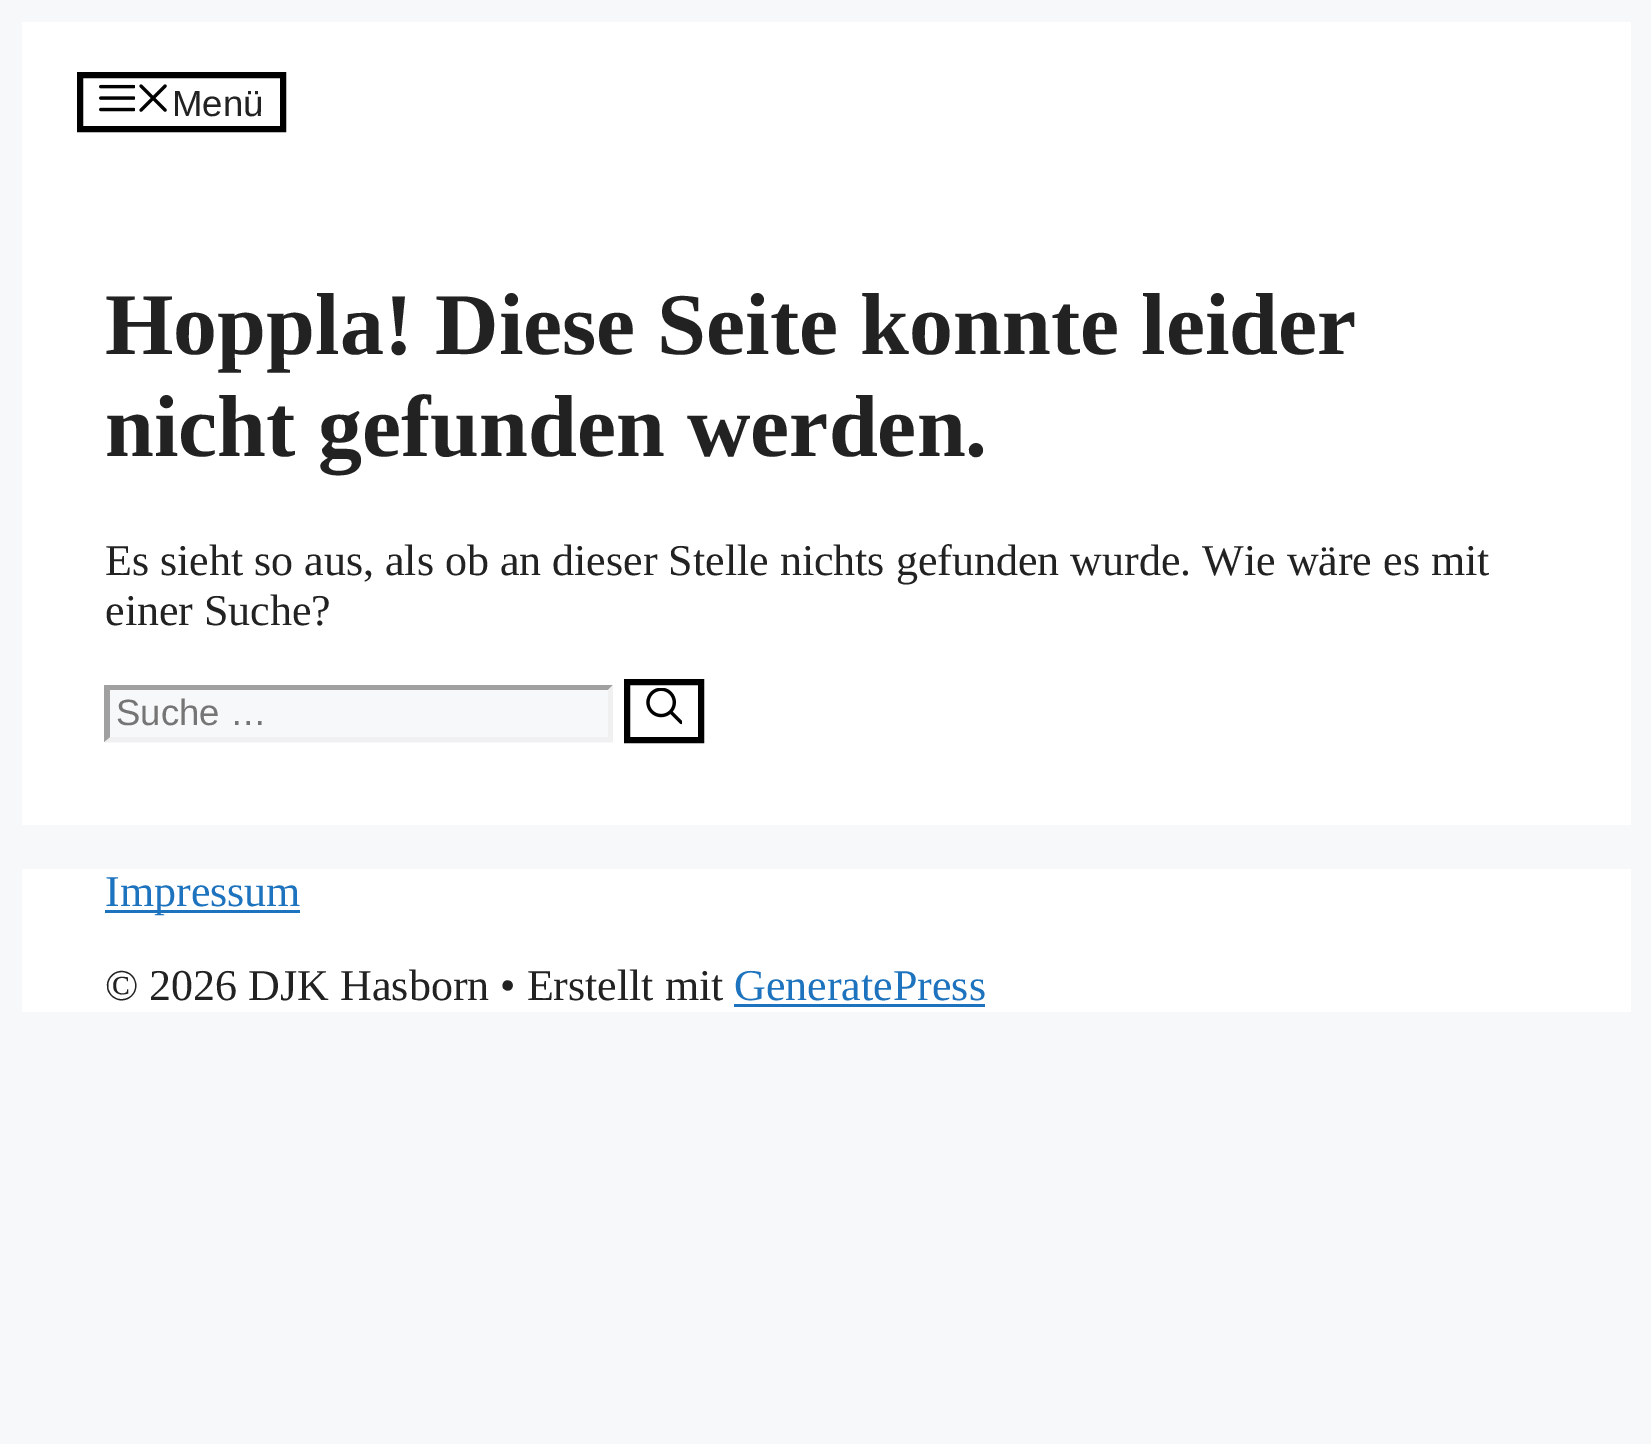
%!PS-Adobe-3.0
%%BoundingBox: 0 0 1651 1444
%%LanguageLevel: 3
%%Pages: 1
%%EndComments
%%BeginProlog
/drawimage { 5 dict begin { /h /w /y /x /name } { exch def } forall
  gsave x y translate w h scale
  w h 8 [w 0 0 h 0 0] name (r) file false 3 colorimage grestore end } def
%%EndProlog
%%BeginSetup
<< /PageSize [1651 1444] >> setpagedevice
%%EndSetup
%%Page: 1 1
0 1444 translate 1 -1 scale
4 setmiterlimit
0.969 0.973 0.976 setrgbcolor
0 0 1651 1444 rectfill
1 setgray
22 22 1609 803 rectfill
0 setgray
6 setlinewidth
80 75 203 54 rectstroke
(images/1.raw) 99 84 36 28 drawimage
(images/2.raw) 139 84 28 28 drawimage
0.969 0.973 0.976 setrgbcolor
105 685 508 58 rectfill
0.627 setgray
newpath 104 685 moveto 613 685 lineto 608 690 lineto 110 690 lineto closepath fill
0.941 setgray
newpath 613 685 moveto 613 742 lineto 608 737 lineto 608 690 lineto closepath fill
newpath 613 742 moveto 104 742 lineto 110 737 lineto 608 737 lineto closepath fill
0.627 setgray
newpath 104 742 moveto 104 685 lineto 110 690 lineto 110 737 lineto closepath fill
0 setgray
627 682 74 58 rectstroke
(images/3.raw) 646 688 36 37 drawimage
1 setgray
22 869 1609 143 rectfill
0.118 0.451 0.745 setrgbcolor
105 910 195 3 rectfill
734 1004 251 3 rectfill
/LiberationSans-Regular [36.5 0 0 -36.5 0 0] selectfont
0.133 setgray
172 116 moveto (Menü) show
/LiberationSerif-Bold [88 0 0 -88 0 0] selectfont
105 354 moveto (Hoppla! Diese Seite konnte leider) show
105 456 moveto (nicht gefunden werden.) show
/LiberationSerif-Regular [44 0 0 -44 0 0] selectfont
105 575 moveto (Es sieht so aus, als ob an dieser Stelle nichts gefunden wurde. Wie wäre es mit) show
105 625 moveto (einer Suche?) show
/LiberationSans-Regular [36.5 0 0 -36.5 0 0] selectfont
0.459 setgray
116 725 moveto (Suche …) show
/LiberationSerif-Regular [44 0 0 -44 0 0] selectfont
0.118 0.451 0.745 setrgbcolor
105 906 moveto (Impressum) show
0.133 setgray
105 1000 moveto (© 2026 DJK Hasborn • Erstellt mit) show
0.118 0.451 0.745 setrgbcolor
734 1000 moveto (GeneratePress) show
showpage
%%EOF
